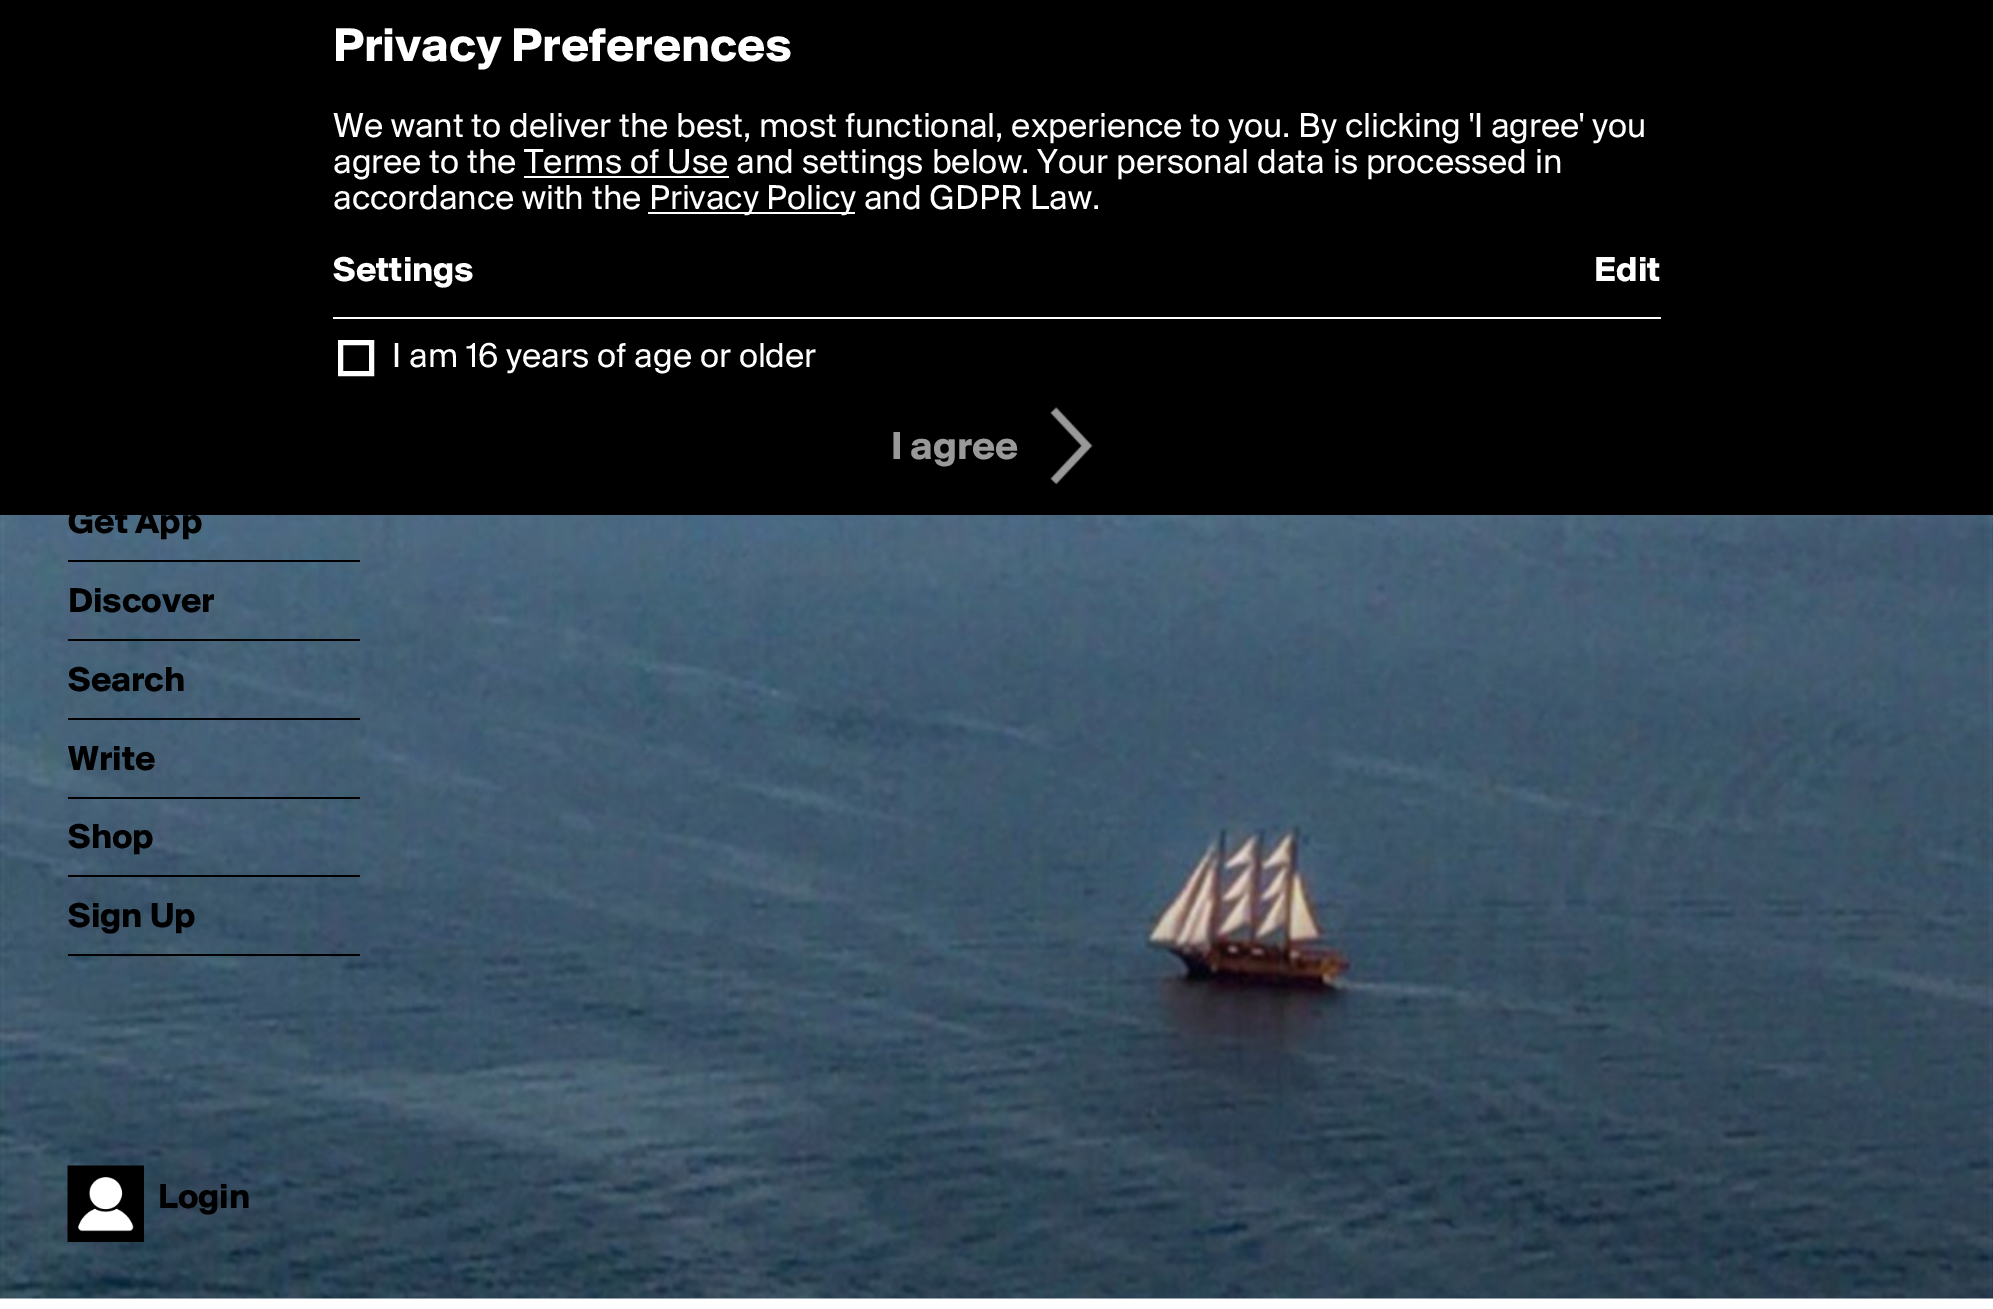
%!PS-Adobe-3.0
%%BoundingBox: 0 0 1993 1309
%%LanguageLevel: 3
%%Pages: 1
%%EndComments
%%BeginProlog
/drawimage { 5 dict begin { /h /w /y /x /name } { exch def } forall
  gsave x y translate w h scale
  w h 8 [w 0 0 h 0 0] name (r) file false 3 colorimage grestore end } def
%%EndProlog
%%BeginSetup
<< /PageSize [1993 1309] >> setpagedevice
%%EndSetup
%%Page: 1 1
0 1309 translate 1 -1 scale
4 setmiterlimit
1 setgray
0 0 1993 1309 rectfill
0 setgray
0 0 1993 515 rectfill
1 setgray
524 176 205 2 rectfill
648 212 207 2 rectfill
333 317 1328 2 rectfill
5 setlinewidth
340.5 342.5 31 31 rectstroke
(images/1.raw) 1050 407 43 78 drawimage
(images/3.raw) 0 515 1993 784 drawimage
0 setgray
68 560 292 2 rectfill
68 639 292 2 rectfill
68 718 292 2 rectfill
68 797 292 2 rectfill
68 875 292 2 rectfill
68 954 292 2 rectfill
(images/2.raw) 67 1165 77 77 drawimage
/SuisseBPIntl-Bold [49.5 0 0 -49.5 0 0] selectfont
1 setgray
333 61 moveto (Privacy Preferences) show
/SuisseBPIntl-Regular [36 0 0 -36 0 0] selectfont
333 137 moveto (We want to deliver the best, most functional, experience to you. By clicking 'I agree' you) show
333 173 moveto (agree to the Terms of Use and settings below. Your personal data is processed in) show
333 209 moveto (accordance with the) show
649 209 moveto (Privacy Policy and GDPR Law.) show
/SuisseBPIntl-Bold [36 0 0 -36 0 0] selectfont
333 281 moveto (Settings) show
1594 281 moveto (Edit) show
/SuisseBPIntl-Regular [36 0 0 -36 0 0] selectfont
392 367 moveto (I am 16 years of age or older) show
/SuisseBPIntl-Bold [40.5 0 0 -40.5 0 0] selectfont
0.6 setgray
891 459 moveto (I agree) show
/SuisseBPIntl-Bold [36 0 0 -36 0 0] selectfont
0 setgray
68 533 moveto (Get App) show
68 612 moveto (Discover) show
68 691 moveto (Search) show
68 770 moveto (Write) show
68 848 moveto (Shop) show
68 927 moveto (Sign Up) show
158 1208 moveto (Login) show
showpage
%%EOF
